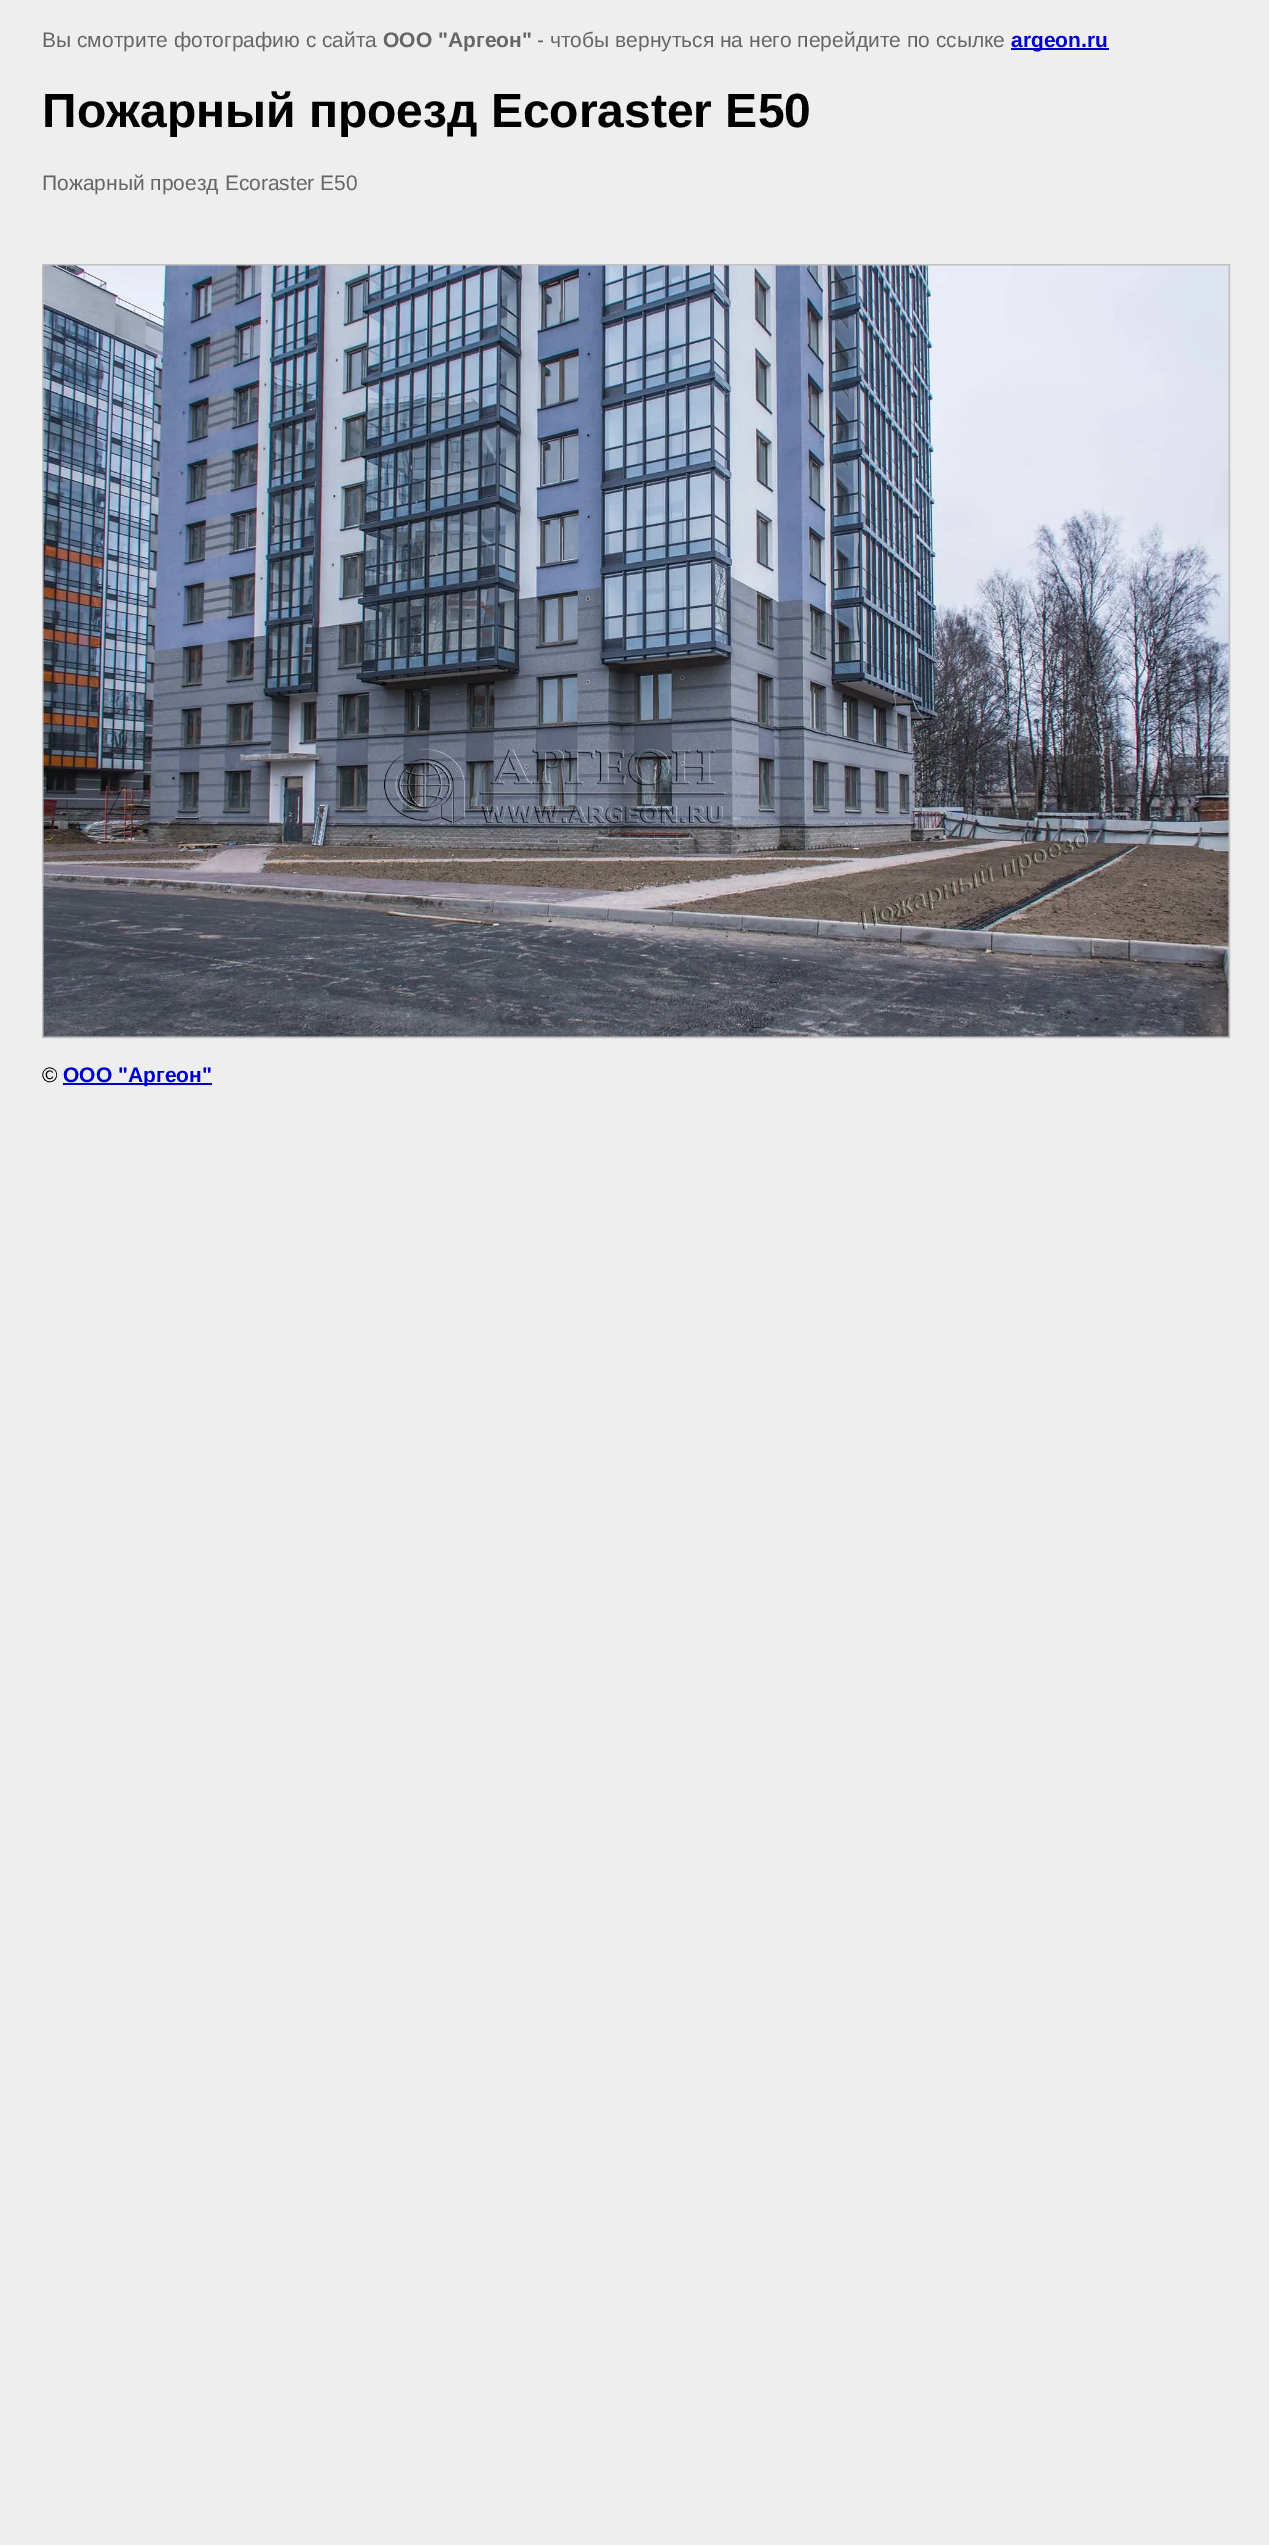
%!PS-Adobe-3.0
%%BoundingBox: 0 0 1269 2545
%%LanguageLevel: 3
%%Pages: 1
%%EndComments
%%BeginProlog
/drawimage { 5 dict begin { /h /w /y /x /name } { exch def } forall
  gsave x y translate w h scale
  w h 8 [w 0 0 h 0 0] name (r) file false 3 colorimage grestore end } def
%%EndProlog
%%BeginSetup
<< /PageSize [1269 2545] >> setpagedevice
%%EndSetup
%%Page: 1 1
0 2545 translate 1 -1 scale
4 setmiterlimit
0.933 setgray
0 0 1269 2545 rectfill
0 0 0.8 setrgbcolor
1011 48 98 2 rectfill
0.753 setgray
2 setlinewidth
43 265 1186 772 rectstroke
(images/1.raw) 43 265 1186 772 drawimage
0 0 0.8 setrgbcolor
63 1083 149 2 rectfill
/LiberationSans-Regular [21 0 0 -21 0 0] selectfont
0.4 setgray
42 47 moveto (Вы смотрите фотографию с сайта) show
/LiberationSans-Bold [21 0 0 -21 0 0] selectfont
383 47 moveto (ООО "Аргеон") show
/LiberationSans-Regular [21 0 0 -21 0 0] selectfont
537 47 moveto (- чтобы вернуться на него перейдите по ссылке) show
/LiberationSans-Bold [21 0 0 -21 0 0] selectfont
0 0 0.8 setrgbcolor
1011 47 moveto (argeon.ru) show
/LiberationSans-Bold [48 0 0 -48 0 0] selectfont
0 setgray
42 127 moveto (Пожарный проезд Ecoraster E50) show
/LiberationSans-Regular [21 0 0 -21 0 0] selectfont
0.4 setgray
42 190 moveto (Пожарный проезд Ecoraster E50) show
0 setgray
42 1082 moveto (©) show
/LiberationSans-Bold [21 0 0 -21 0 0] selectfont
0 0 0.8 setrgbcolor
63 1082 moveto (ООО "Аргеон") show
showpage
%%EOF
